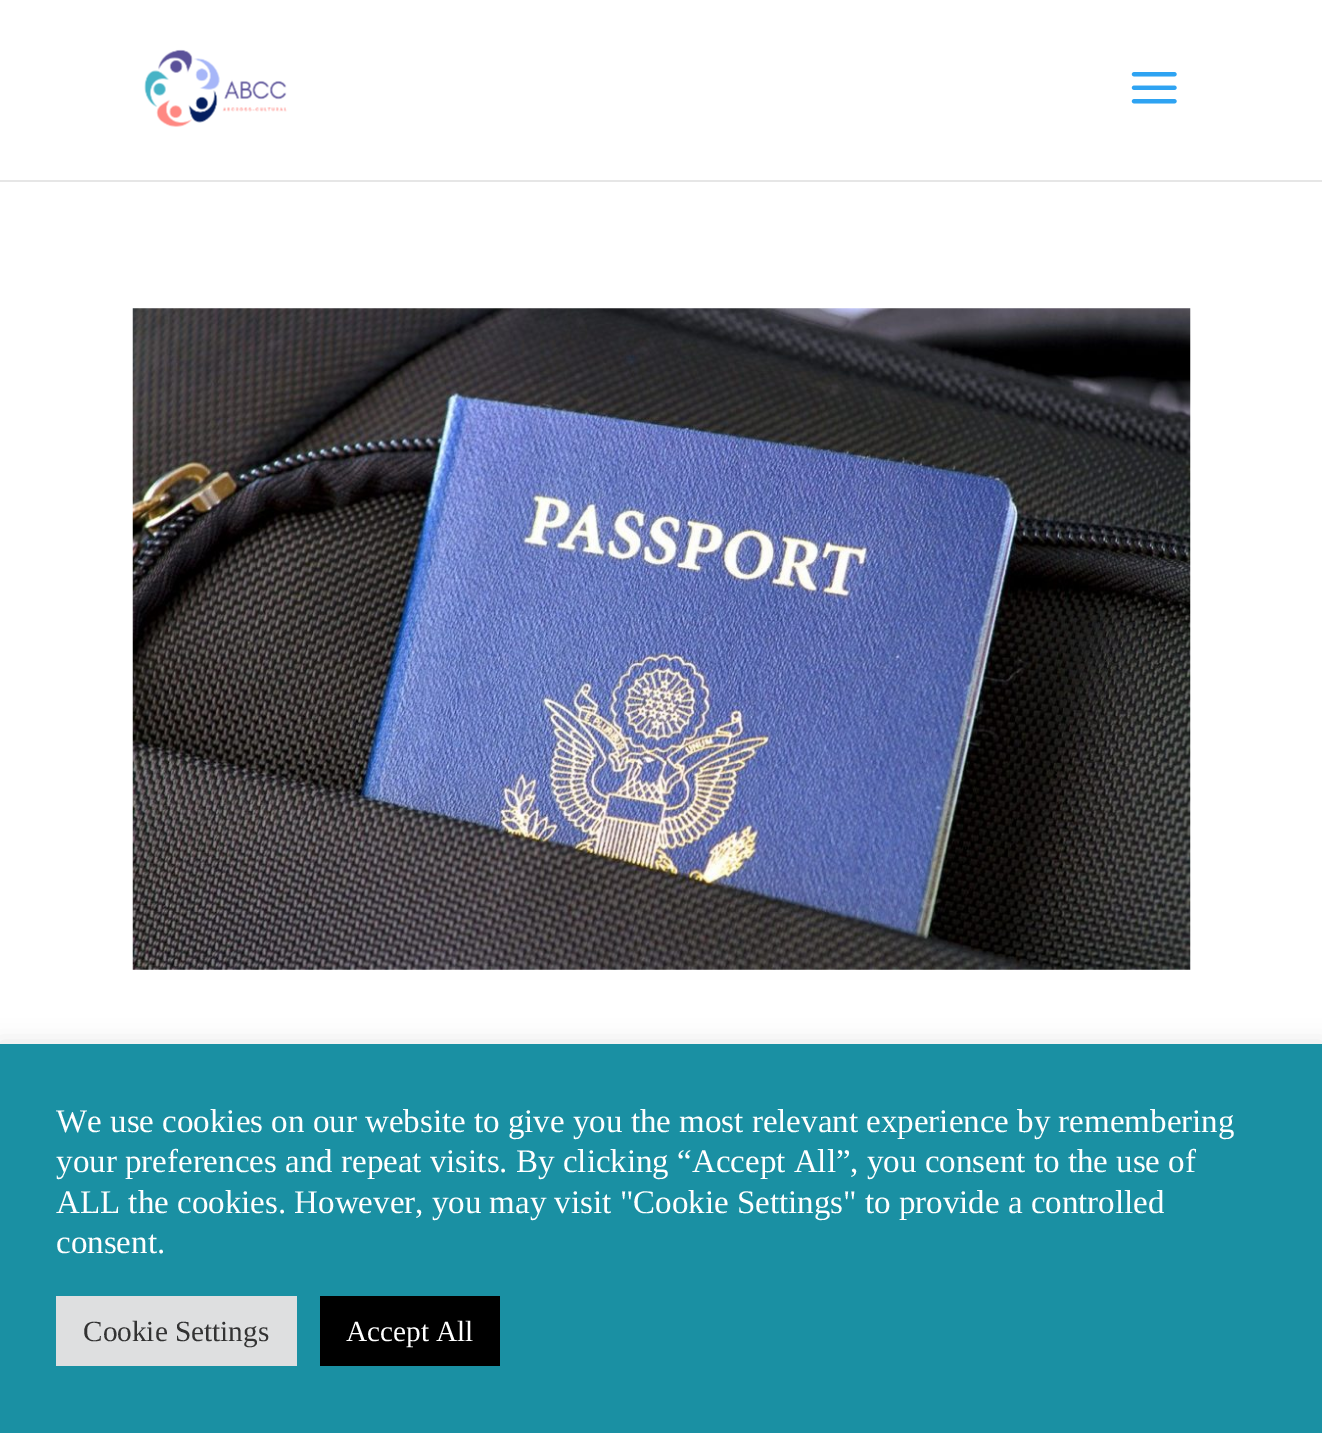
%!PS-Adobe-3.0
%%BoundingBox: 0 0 1322 1433
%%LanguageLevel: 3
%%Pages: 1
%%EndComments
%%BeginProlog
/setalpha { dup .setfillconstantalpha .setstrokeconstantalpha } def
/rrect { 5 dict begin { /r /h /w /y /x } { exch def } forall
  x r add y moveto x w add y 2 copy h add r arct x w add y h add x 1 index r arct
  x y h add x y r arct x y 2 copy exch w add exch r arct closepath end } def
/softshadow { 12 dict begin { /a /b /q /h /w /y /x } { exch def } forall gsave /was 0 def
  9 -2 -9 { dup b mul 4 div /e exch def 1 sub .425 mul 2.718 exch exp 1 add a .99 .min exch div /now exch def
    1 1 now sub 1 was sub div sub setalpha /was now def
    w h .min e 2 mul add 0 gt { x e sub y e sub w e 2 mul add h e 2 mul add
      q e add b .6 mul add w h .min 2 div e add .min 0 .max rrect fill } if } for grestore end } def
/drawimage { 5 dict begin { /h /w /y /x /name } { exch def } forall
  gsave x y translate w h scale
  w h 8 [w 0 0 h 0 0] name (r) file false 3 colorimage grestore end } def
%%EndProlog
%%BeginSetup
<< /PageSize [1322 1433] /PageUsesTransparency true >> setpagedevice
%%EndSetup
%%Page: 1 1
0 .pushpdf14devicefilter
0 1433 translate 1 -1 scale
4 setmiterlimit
1 setgray
0 0 1322 1433 rectfill
0.902 setgray
0 180 1322 2 rectfill
(images/1.raw) 144 49 143 78 drawimage
(images/2.raw) 1131 72 46 32 drawimage
(images/3.raw) 132 308 1059 662 drawimage
0.675 0.671 0.671 setrgbcolor
0 1042 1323 389 0 11 0.3 softshadow
0.102 0.565 0.639 setrgbcolor
0 1044 1322 389 rectfill
0.871 0.875 0.878 setrgbcolor
56 1296 241 70 rectfill
0 setgray
320 1296 180 70 rectfill
/LiberationSerif-Regular [33 0 0 -33 0 0] selectfont
1 setgray
56 1132 moveto (We use cookies on our website to give you the most relevant experience by remembering) show
56 1172 moveto (your preferences and repeat visits. By clicking “Accept All”, you consent to the use of) show
56 1213 moveto (ALL the cookies. However, you may visit "Cookie Settings" to provide a controlled) show
56 1253 moveto (consent.) show
/LiberationSerif-Regular [29.25 0 0 -29.25 0 0] selectfont
0.2 setgray
83 1341 moveto (Cookie Settings) show
1 setgray
346 1341 moveto (Accept All) show
.poppdf14devicefilter showpage
%%EOF
